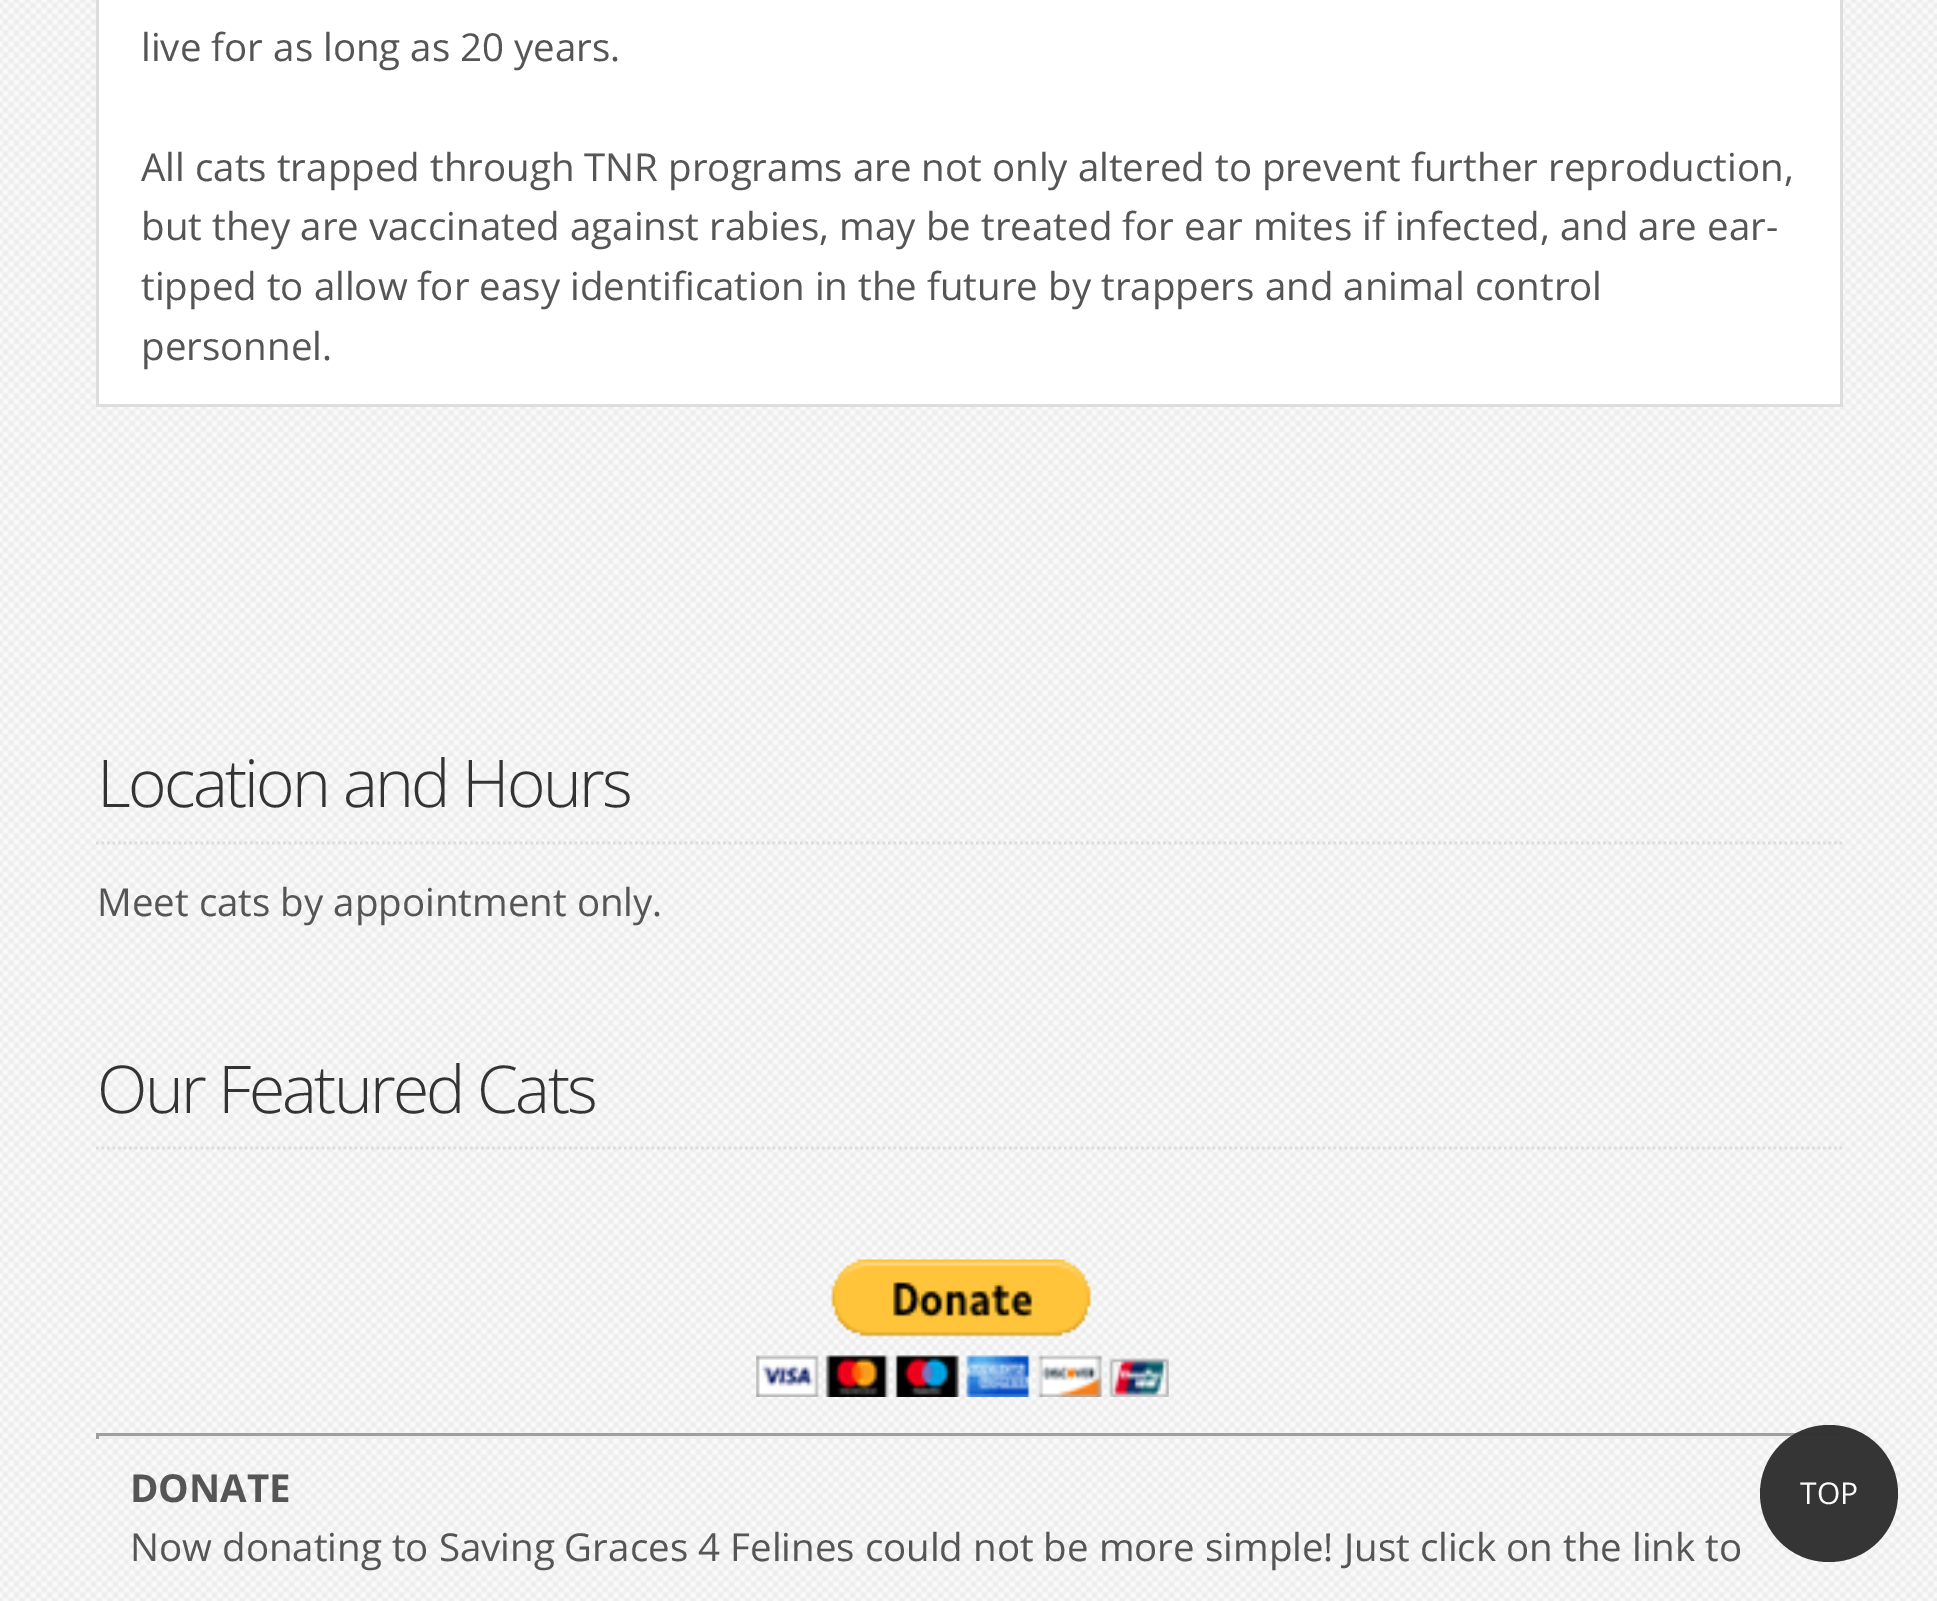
%!PS-Adobe-3.0
%%BoundingBox: 0 0 1937 1601
%%LanguageLevel: 3
%%Pages: 1
%%EndComments
%%BeginProlog
/setalpha { dup .setfillconstantalpha .setstrokeconstantalpha } def
/rrect { 5 dict begin { /r /h /w /y /x } { exch def } forall
  x r add y moveto x w add y 2 copy h add r arct x w add y h add x 1 index r arct
  x y h add x y r arct x y 2 copy exch w add exch r arct closepath end } def
/drawimage { 5 dict begin { /h /w /y /x /name } { exch def } forall
  gsave x y translate w h scale
  w h 8 [w 0 0 h 0 0] name (r) file false 3 colorimage grestore end } def
%%EndProlog
%%BeginSetup
<< /PageSize [1937 1601] /PageUsesTransparency true >> setpagedevice
%%EndSetup
%%Page: 1 1
0 .pushpdf14devicefilter
0 1601 translate 1 -1 scale
4 setmiterlimit
0.98 setgray
0 0 1937 1601 rectfill
(images/1.raw) 0 0 1937 1601 drawimage
1 setgray
99 0 1741 404 rectfill
0.867 setgray
1840 0 3 407 rectfill
96 404 1747 3 rectfill
96 0 3 407 rectfill
2.8 setlinewidth
[2.75 2.75] 0 setdash
newpath 96 843 moveto 1842.5 843 lineto stroke
newpath 96 1148 moveto 1842.5 1148 lineto stroke
(images/2.raw) 756 1259 413 138 drawimage
0.624 setgray
96 1433 1747 3 rectfill
0.933 setgray
1840 1433 3 6 rectfill
96 1436 1747 3 rectfill
0.624 setgray
96 1433 3 6 rectfill
0.99 setalpha
0.2 setgray
1760 1425 138 137 68.5 rrect fill
/OpenSans-Regular [38.5 0 0 -38.5 0 0] selectfont
1 setalpha
0.333 setgray
141 61 moveto (live for as long as 20 years.) show
141 181 moveto (All cats trapped through TNR programs are not only altered to prevent further reproduction,) show
141 240 moveto (but they are vaccinated against rabies, may be treated for ear mites if infected, and are ear-) show
141 300 moveto (tipped to allow for easy identification in the future by trappers and animal control) show
141 360 moveto (personnel.) show
/OpenSans-Light [66 0 0 -66 0 0] selectfont
0.2 setgray
97 807 moveto -2.75 0 (Location and Hours) ashow
/OpenSans-Regular [38.5 0 0 -38.5 0 0] selectfont
0.333 setgray
97 916 moveto (Meet cats by appointment only.) show
/OpenSans-Light [66 0 0 -66 0 0] selectfont
0.2 setgray
97 1113 moveto -2.75 0 (Our Featured Cats) ashow
/OpenSans-Bold [38.5 0 0 -38.5 0 0] selectfont
0.333 setgray
130 1502 moveto (DONATE) show
/OpenSans-Regular [38.5 0 0 -38.5 0 0] selectfont
130 1561 moveto (Now donating to Saving Graces 4 Felines could not be more simple! Just click on the link to) show
/OpenSans-Regular [30 0 0 -30 0 0] selectfont
0.988 setgray
1800 1504 moveto (TOP) show
.poppdf14devicefilter showpage
%%EOF
